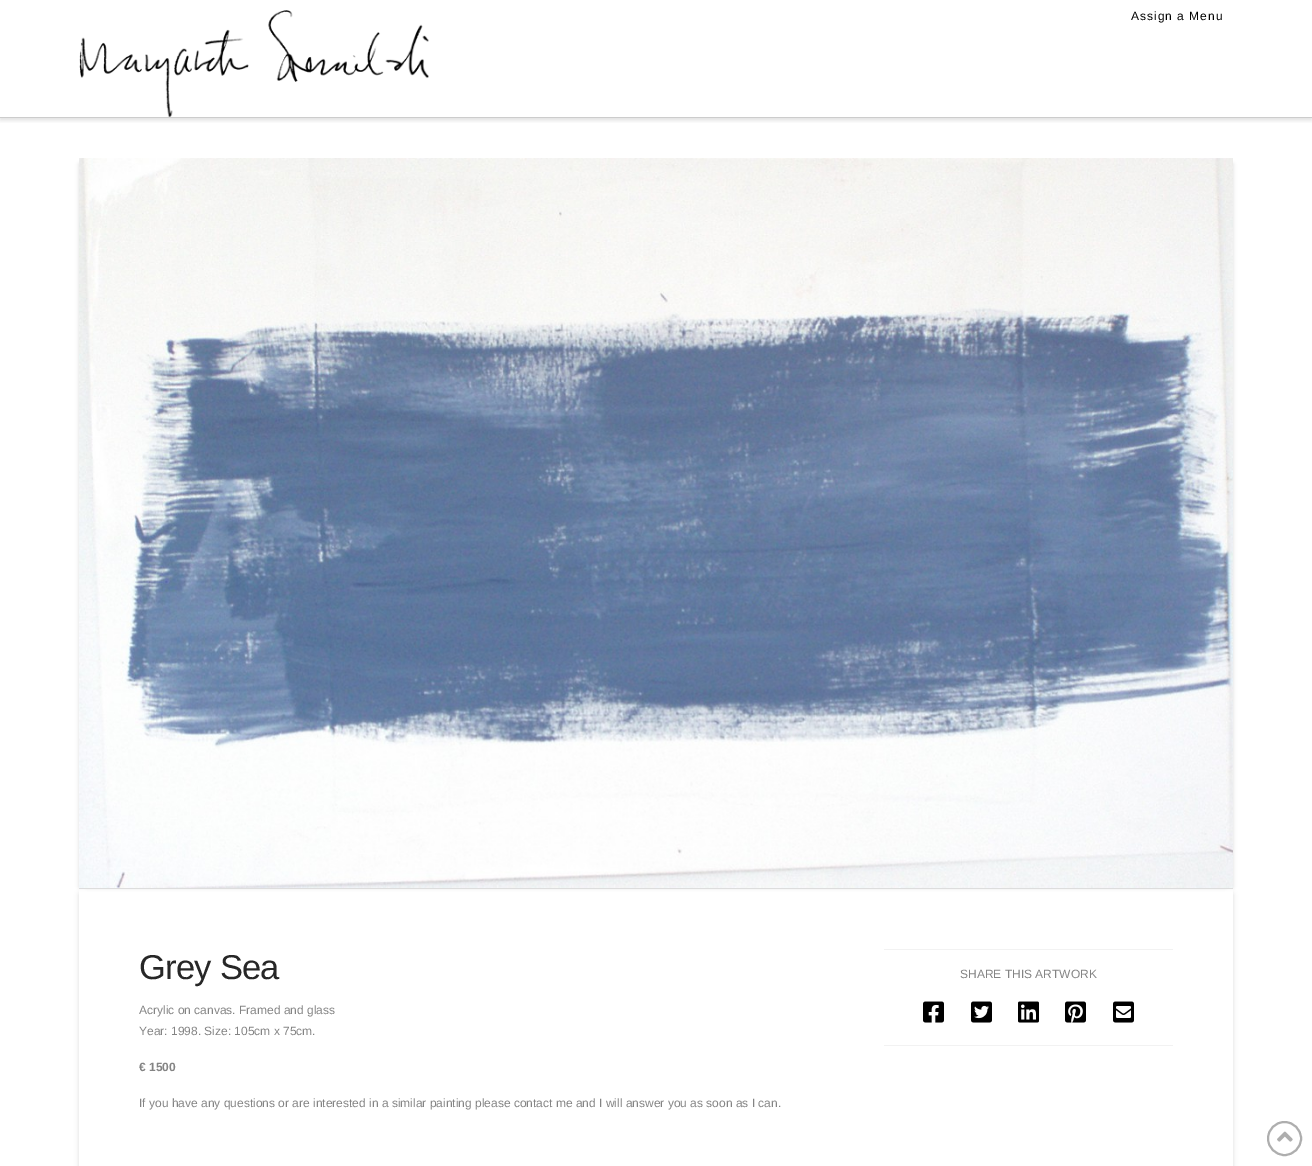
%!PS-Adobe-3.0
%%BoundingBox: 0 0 1312 1166
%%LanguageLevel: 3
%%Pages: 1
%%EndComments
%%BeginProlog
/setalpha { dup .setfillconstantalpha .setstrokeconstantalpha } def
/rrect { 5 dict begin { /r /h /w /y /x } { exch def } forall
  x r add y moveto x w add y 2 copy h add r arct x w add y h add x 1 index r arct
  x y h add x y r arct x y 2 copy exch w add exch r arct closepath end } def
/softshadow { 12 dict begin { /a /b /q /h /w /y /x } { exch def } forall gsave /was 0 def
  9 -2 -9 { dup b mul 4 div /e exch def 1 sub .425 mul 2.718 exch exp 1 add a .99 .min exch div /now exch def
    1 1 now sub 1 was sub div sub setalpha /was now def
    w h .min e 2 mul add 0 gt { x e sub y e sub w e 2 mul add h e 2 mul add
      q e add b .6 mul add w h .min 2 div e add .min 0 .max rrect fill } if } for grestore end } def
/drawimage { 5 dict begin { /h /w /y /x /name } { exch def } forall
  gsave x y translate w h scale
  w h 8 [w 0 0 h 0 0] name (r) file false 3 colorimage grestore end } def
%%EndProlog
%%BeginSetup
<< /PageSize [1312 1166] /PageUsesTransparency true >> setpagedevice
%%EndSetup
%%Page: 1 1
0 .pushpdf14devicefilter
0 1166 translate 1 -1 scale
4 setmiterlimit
1 setgray
0 0 1312 1166 rectfill
gsave
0 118 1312 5 rectclip
0 setgray
0 2 1312 118 0 2.5 0.13 softshadow
grestore
0.8 setgray
0 117 1312 1 rectfill
(images/1.raw) 79 10 350 107 drawimage
0 setgray
79 164 1146 723 0 2 0.13 softshadow
87 164 1146 723 0 2 0.13 softshadow
gsave
newpath 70 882 moveto 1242 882 lineto 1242 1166 lineto 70 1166 lineto closepath 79 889 moveto 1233 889 lineto 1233 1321 lineto 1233 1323 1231 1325 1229 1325 curveto 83 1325 lineto 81 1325 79 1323 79 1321 curveto closepath eoclip newpath
79 891 1154 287 4 2.5 0.13 softshadow
grestore
0.867 setgray
79 888 1154 1 rectfill
(images/2.raw) 79 158 1154 730 drawimage
0.949 setgray
884 949 289 1 rectfill
884 1045 289 1 rectfill
(images/3.raw) 923 1001 21 22 drawimage
(images/4.raw) 971 1001 21 22 drawimage
(images/5.raw) 1018 1001 21 22 drawimage
(images/6.raw) 1065 1001 21 22 drawimage
(images/7.raw) 1113 1001 21 22 drawimage
0.682 setgray
2 setlinewidth
newpath 1284.5 1138.5 16.5 0 360 arc closepath stroke
(images/8.raw) 1277 1131 16 11 drawimage
/LiberationSans-Regular [12 0 0 -12 0 0] selectfont
0 setgray
1131 20 moveto 1 0 (Assign a Menu) ashow
/LiberationSans-Regular [34.5 0 0 -34.5 0 0] selectfont
0.153 setgray
139 979 moveto -0.75 0 (Grey Sea) ashow
/LiberationSans-Regular [12 0 0 -12 0 0] selectfont
0.518 setgray
139 1014 moveto (Acrylic on canvas. Framed and glass) show
139 1035 moveto (Year: 1998. Size: 105cm x 75cm.) show
/LiberationSans-Bold [12 0 0 -12 0 0] selectfont
139 1071 moveto (€ 1500) show
/LiberationSans-Regular [12 0 0 -12 0 0] selectfont
139 1107 moveto (If you have any questions or are interested in a similar painting please contact me and I will answer you as soon as I can.) show
960 978 moveto (SHARE THIS ARTWORK) show
.poppdf14devicefilter showpage
%%EOF
